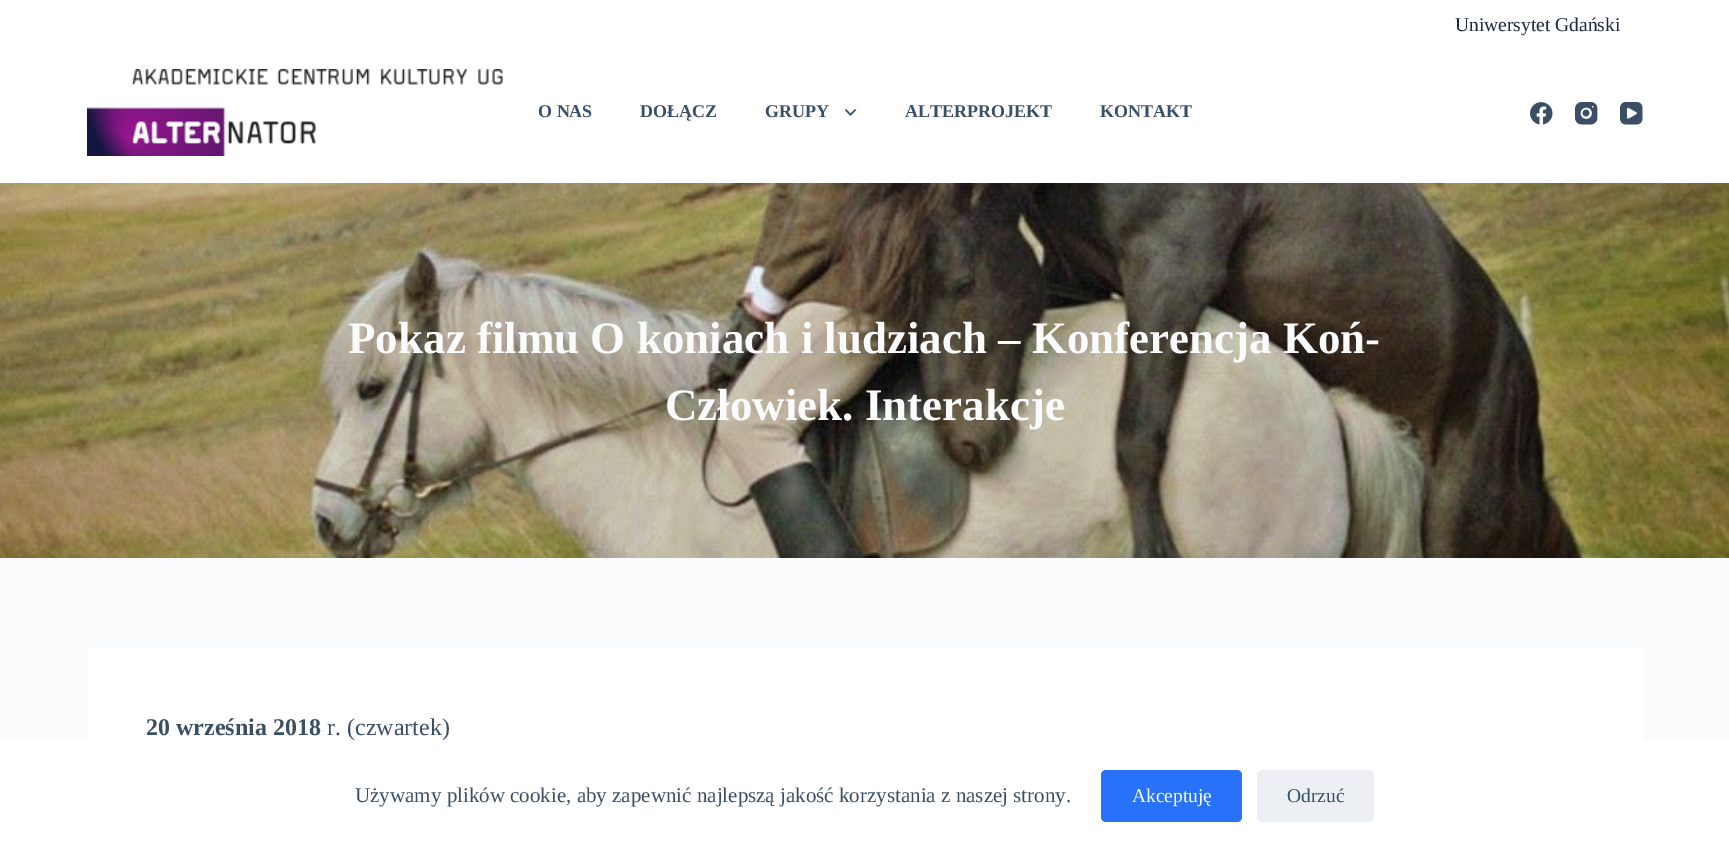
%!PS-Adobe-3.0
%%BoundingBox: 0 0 1729 852
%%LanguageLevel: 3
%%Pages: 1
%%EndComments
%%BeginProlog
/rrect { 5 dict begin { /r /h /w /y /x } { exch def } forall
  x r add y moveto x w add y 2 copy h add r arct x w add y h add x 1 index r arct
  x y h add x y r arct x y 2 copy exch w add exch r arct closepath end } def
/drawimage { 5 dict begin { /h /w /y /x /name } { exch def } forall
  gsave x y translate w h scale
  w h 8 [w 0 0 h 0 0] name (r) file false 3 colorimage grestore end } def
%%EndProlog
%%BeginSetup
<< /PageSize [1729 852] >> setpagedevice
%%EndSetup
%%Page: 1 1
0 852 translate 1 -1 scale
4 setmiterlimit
0.98 0.984 0.988 setrgbcolor
0 0 1729 852 rectfill
1 setgray
0 0 1729 183 rectfill
(images/1.raw) 87 69 416 87 drawimage
(images/2.raw) 845 109 12 7 drawimage
(images/3.raw) 1530 102 23 23 drawimage
(images/4.raw) 1575 102 23 23 drawimage
(images/5.raw) 1620 102 23 23 drawimage
(images/6.raw) 0 183 1729 375 drawimage
87 648 1556 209 5 rrect fill
/LiberationSerif-Regular [19.5 0 0 -19.5 0 0] selectfont
0.098 0.165 0.239 setrgbcolor
1455 31 moveto (Uniwersytet Gdański) show
/LiberationSerif-Bold [18 0 0 -18 0 0] selectfont
0.227 0.31 0.4 setrgbcolor
538 117 moveto (O NAS) show
640 117 moveto (DOŁĄCZ) show
765 117 moveto (GRUPY) show
905 117 moveto (ALTERPROJEKT) show
1100 117 moveto (KONTAKT) show
/LiberationSerif-Bold [45 0 0 -45 0 0] selectfont
0.98 0.984 0.988 setrgbcolor
348 353 moveto (Pokaz filmu O koniach i ludziach – Konferencja Koń-) show
665 420 moveto (Człowiek. Interakcje) show
/LiberationSerif-Bold [24 0 0 -24 0 0] selectfont
0.227 0.31 0.4 setrgbcolor
146 735 moveto (20 września 2018) show
/LiberationSerif-Regular [24 0 0 -24 0 0] selectfont
327 735 moveto (r. \(czwartek\)) show
1 setgray
0 740 1729 112 rectfill
/LiberationSerif-Regular [21 0 0 -21 0 0] selectfont
0.227 0.31 0.4 setrgbcolor
355 802 moveto (Używamy plików cookie, aby zapewnić najlepszą jakość korzystania z naszej strony.) show
0.157 0.447 0.98 setrgbcolor
1101 770 141 52 5 rrect fill
/LiberationSerif-Regular [19.5 0 0 -19.5 0 0] selectfont
0.98 0.984 0.988 setrgbcolor
1132 802 moveto (Akceptuję) show
0.925 0.937 0.953 setrgbcolor
1257 770 117 52 5 rrect fill
0.227 0.31 0.4 setrgbcolor
1287 802 moveto (Odrzuć) show
showpage
%%EOF
